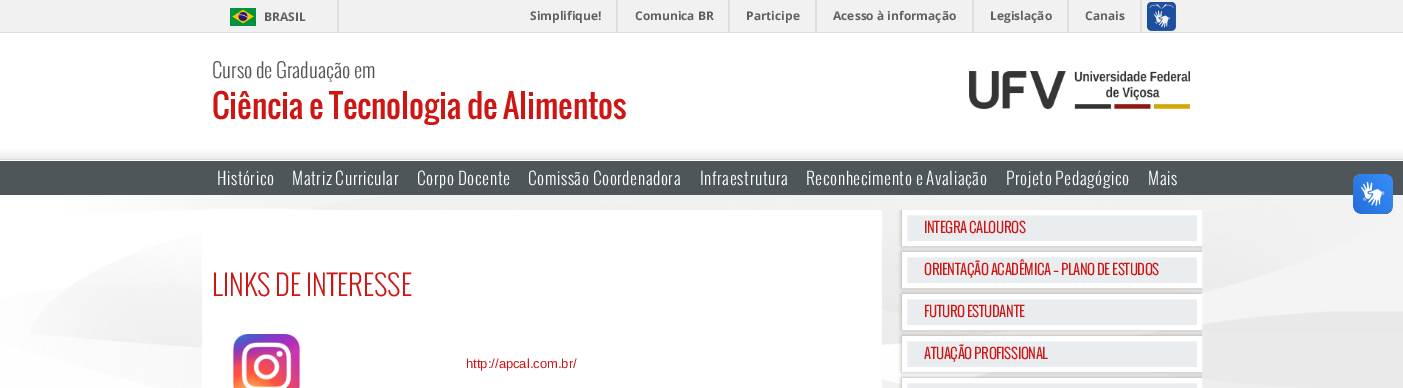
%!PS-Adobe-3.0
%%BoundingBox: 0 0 1403 388
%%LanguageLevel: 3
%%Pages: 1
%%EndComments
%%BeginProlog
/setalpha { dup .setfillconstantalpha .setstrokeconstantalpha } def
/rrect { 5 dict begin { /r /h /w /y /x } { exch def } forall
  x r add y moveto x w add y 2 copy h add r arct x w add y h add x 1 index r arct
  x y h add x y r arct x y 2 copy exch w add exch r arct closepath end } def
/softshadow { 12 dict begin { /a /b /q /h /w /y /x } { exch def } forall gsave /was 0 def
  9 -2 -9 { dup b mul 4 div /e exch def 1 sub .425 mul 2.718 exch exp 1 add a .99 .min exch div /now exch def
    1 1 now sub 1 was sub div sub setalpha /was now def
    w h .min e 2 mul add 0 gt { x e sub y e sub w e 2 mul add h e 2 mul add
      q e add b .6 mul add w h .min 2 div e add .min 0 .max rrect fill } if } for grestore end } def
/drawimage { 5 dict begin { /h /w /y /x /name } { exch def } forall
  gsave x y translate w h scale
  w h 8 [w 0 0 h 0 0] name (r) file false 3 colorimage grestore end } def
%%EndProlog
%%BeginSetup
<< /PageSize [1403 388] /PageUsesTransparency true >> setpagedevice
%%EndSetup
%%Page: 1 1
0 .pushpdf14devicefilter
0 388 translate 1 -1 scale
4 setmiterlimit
0.945 setgray
0 0 1403 388 rectfill
0.875 setgray
0 32 1403 1 rectfill
337 0 2 32 rectfill
(images/1.raw) 230 8 26 18 drawimage
616 0 2 32 rectfill
728 0 2 32 rectfill
815 0 2 32 rectfill
972 0 2 32 rectfill
1067 0 2 32 rectfill
1140 0 2 32 rectfill
(images/2.raw) 1147 2 29 29 drawimage
(images/3.raw) 0 33 1403 355 drawimage
(images/4.raw) 969 71 221 38 drawimage
0.31 0.337 0.353 setrgbcolor
0 161 1403 34 rectfill
1 setgray
202 210 680 178 rectfill
(images/5.raw) 233 334 68 54 drawimage
gsave
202 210 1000 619 rectclip
0.6 setgray
902 210 300 36 0 2 1 softshadow
grestore
0.918 0.929 0.937 setrgbcolor
newpath 904.5 212.5 moveto 1199.5 212.5 lineto 1199.5 243.5 lineto 904.5 243.5 lineto closepath gsave fill grestore
1 setgray
5 setlinewidth
stroke
gsave
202 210 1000 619 rectclip
0.6 setgray
902 252 300 36 0 2 1 softshadow
grestore
0.918 0.929 0.937 setrgbcolor
newpath 904.5 254.5 moveto 1199.5 254.5 lineto 1199.5 285.5 lineto 904.5 285.5 lineto closepath gsave fill grestore
1 setgray
stroke
gsave
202 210 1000 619 rectclip
0.6 setgray
902 294 300 36 0 2 1 softshadow
grestore
0.918 0.929 0.937 setrgbcolor
newpath 904.5 296.5 moveto 1199.5 296.5 lineto 1199.5 327.5 lineto 904.5 327.5 lineto closepath gsave fill grestore
1 setgray
stroke
gsave
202 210 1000 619 rectclip
0.6 setgray
902 336 300 36 0 2 1 softshadow
grestore
0.918 0.929 0.937 setrgbcolor
newpath 904.5 338.5 moveto 1199.5 338.5 lineto 1199.5 369.5 lineto 904.5 369.5 lineto closepath gsave fill grestore
1 setgray
stroke
gsave
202 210 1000 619 rectclip
0.6 setgray
902 378 300 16 0 2 1 softshadow
grestore
0.918 0.929 0.937 setrgbcolor
newpath 904.5 380.5 moveto 1199.5 380.5 lineto 1199.5 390.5 lineto 904.5 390.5 lineto closepath gsave fill grestore
1 setgray
stroke
(images/6.raw) 1353 174 40 40 drawimage
(images/7.raw) 1353 174 40 40 drawimage
/OpenSans-Bold [12 0 0 -12 0 0] selectfont
0.376 setgray
264 21 moveto (BRASIL) show
530 20 moveto (Simplifique!) show
635 20 moveto (Comunica BR) show
746 20 moveto (Participe) show
833 20 moveto (Acesso à informação) show
990 20 moveto (Legislação) show
1085 20 moveto (Canais) show
/Oswald-Light [20 0 0 -20 0 0] selectfont
0.329 setgray
212 78 moveto (Curso de Graduação em) show
/Oswald-Regular [32 0 0 -32 0 0] selectfont
0.808 0.086 0.078 setrgbcolor
212 119 moveto (Ciência e Tecnologia de Alimentos) show
/Oswald-Light [17 0 0 -17 0 0] selectfont
1 setgray
217 185 moveto 0.5 0 (Histórico) ashow
292 185 moveto 0.5 0 (Matriz Curricular) ashow
417 185 moveto 0.5 0 (Corpo Docente) ashow
528 185 moveto 0.5 0 (Comissão Coordenadora) ashow
700 185 moveto 0.5 0 (Infraestrutura) ashow
806 185 moveto 0.5 0 (Reconhecimento e Avaliação) ashow
1006 185 moveto 0.5 0 (Projeto Pedagógico) ashow
1148 185 moveto 0.5 0 (Mais) ashow
/Oswald-Light [28 0 0 -28 0 0] selectfont
0.808 0.086 0.078 setrgbcolor
212 296 moveto (LINKS DE INTERESSE) show
/LiberationSans-Regular [13 0 0 -13 0 0] selectfont
466 368 moveto (http://apcal.com.br/) show
/Oswald-Bold [14 0 0 -14 0 0] selectfont
924 233 moveto (INTEGRA CALOUROS) show
924 275 moveto (ORIENTAÇÃO ACADÊMICA – PLANO DE ESTUDOS) show
924 317 moveto (FUTURO ESTUDANTE) show
924 359 moveto (ATUAÇÃO PROFISSIONAL) show
.poppdf14devicefilter showpage
%%EOF
